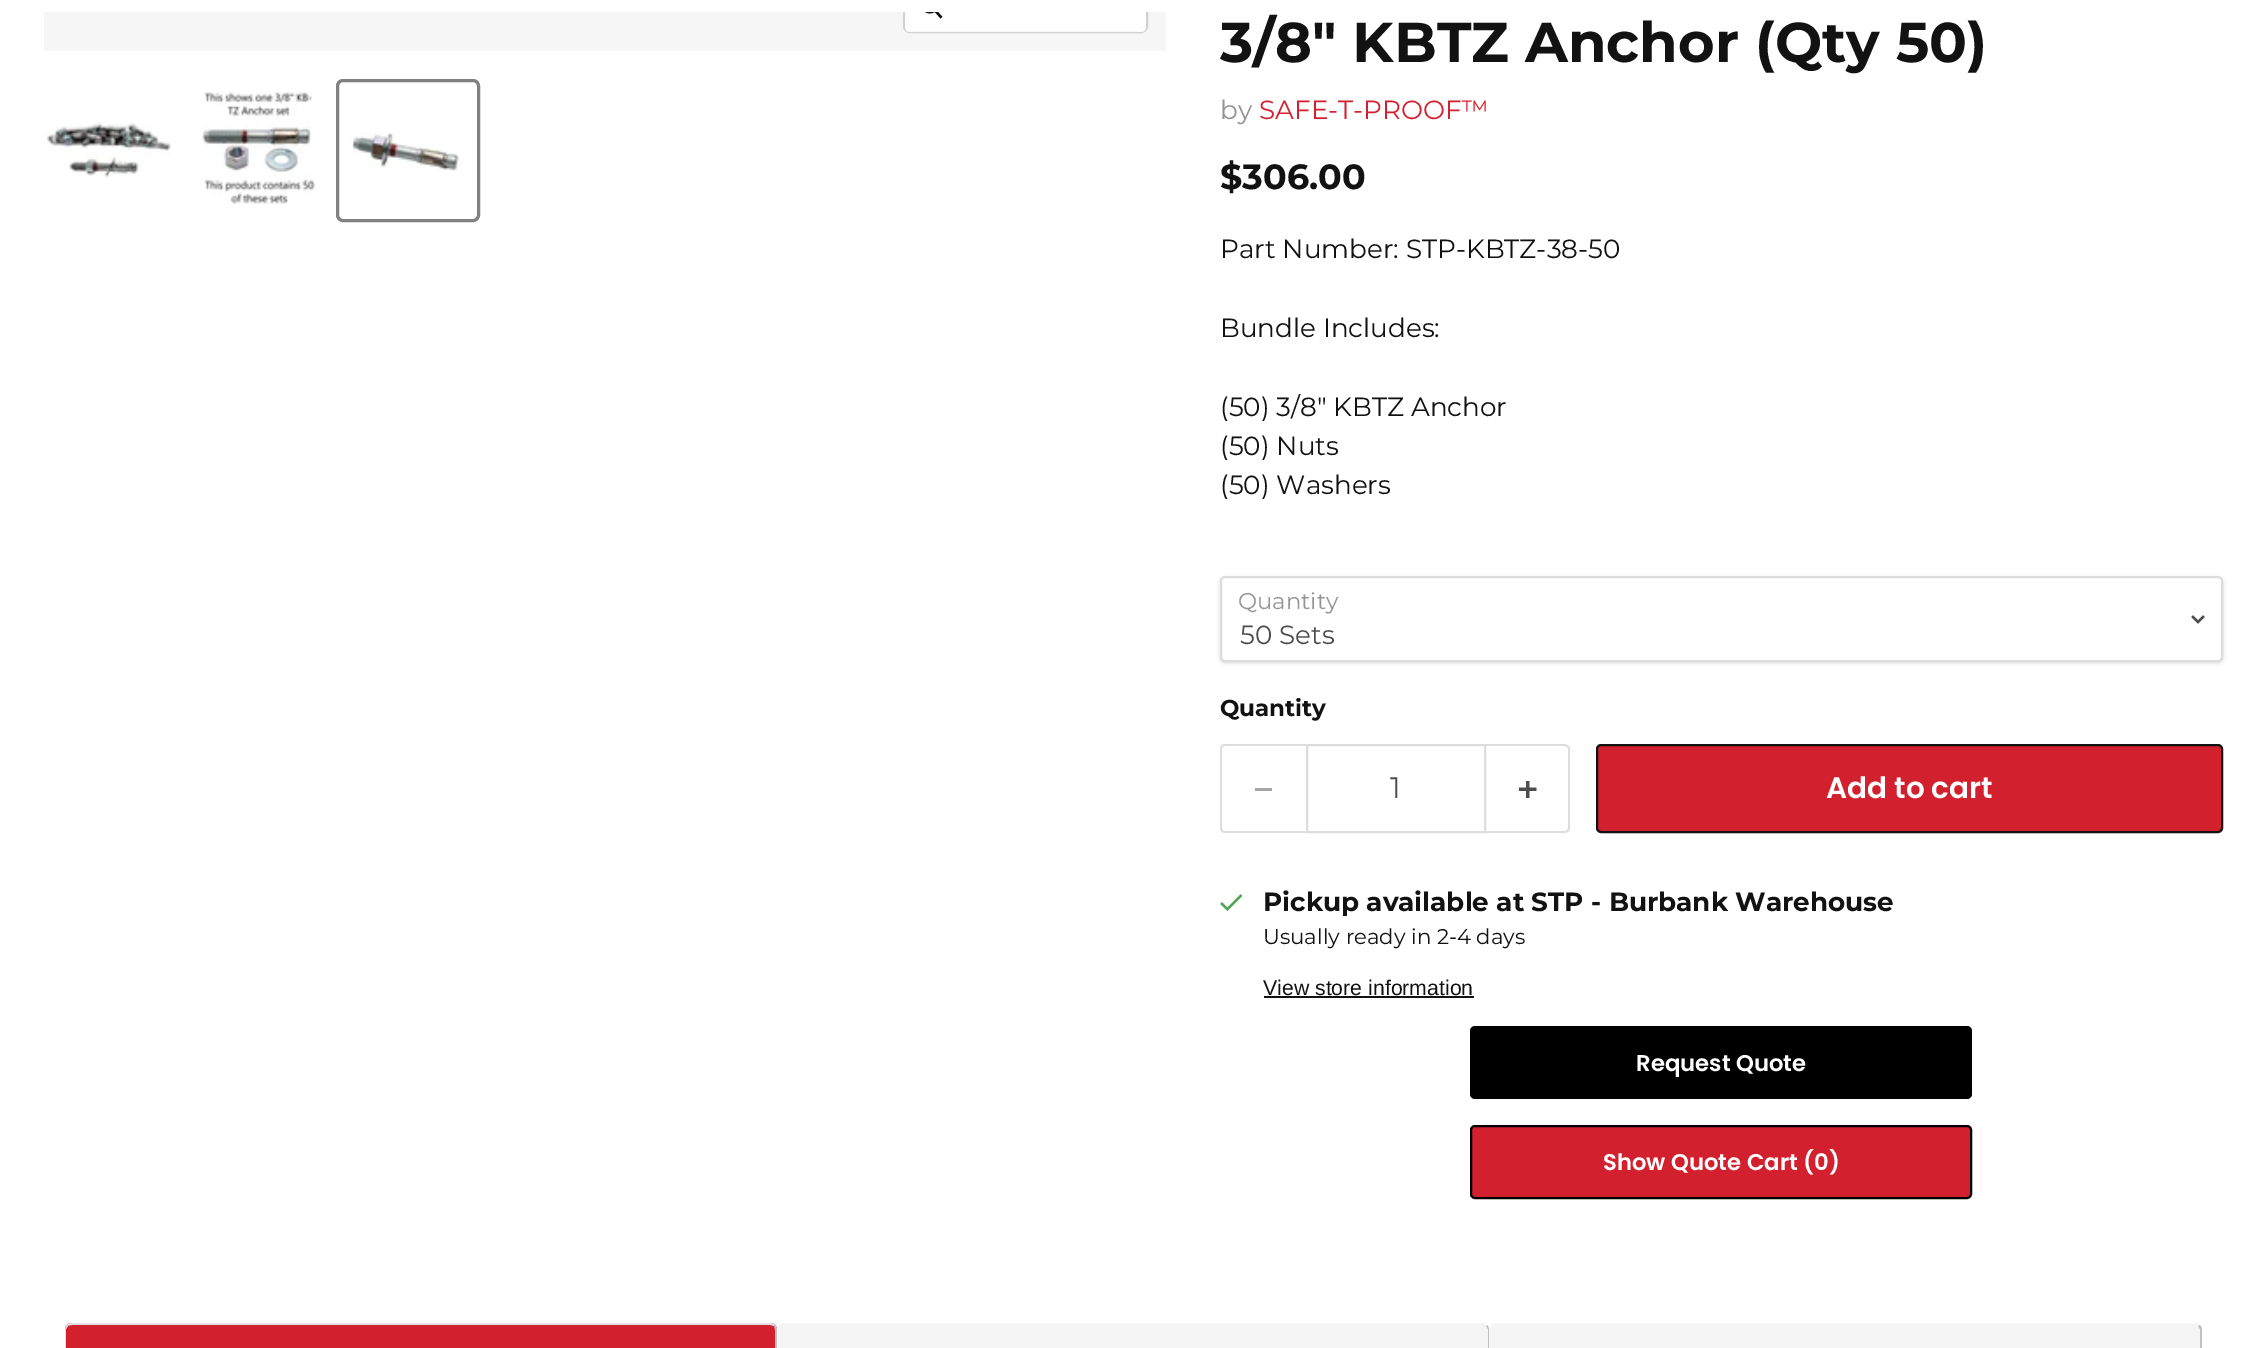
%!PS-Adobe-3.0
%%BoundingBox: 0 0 2266 1348
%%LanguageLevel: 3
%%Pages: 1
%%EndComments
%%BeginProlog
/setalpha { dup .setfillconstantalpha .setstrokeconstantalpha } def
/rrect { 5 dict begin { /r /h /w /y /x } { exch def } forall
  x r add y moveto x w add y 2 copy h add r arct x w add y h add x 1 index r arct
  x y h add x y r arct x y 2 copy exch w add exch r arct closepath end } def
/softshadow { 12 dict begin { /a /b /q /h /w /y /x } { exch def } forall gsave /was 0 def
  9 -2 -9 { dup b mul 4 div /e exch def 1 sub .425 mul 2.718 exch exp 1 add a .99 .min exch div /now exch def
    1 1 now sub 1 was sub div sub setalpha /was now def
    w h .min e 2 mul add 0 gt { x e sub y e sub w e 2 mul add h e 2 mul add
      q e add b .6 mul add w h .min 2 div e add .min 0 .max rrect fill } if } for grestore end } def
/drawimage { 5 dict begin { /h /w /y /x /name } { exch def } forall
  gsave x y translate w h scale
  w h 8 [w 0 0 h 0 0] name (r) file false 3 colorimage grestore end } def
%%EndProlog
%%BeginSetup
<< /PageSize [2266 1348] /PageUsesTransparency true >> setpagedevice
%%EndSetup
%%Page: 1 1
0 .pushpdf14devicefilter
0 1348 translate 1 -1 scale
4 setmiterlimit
1 setgray
0 0 2266 1348 rectfill
0.965 setgray
44 12 1122 39 rectfill
gsave
44 12 1122 39 rectclip
0.82 setgray
2 setlinewidth
904 -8 243 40 6 rrect stroke
grestore
0.9 setalpha
1 setgray
newpath 905 12 moveto 1146 12 lineto 1146 27 lineto 1146 30 1144 32 1141 32 curveto 910 32 lineto 907 32 905 30 905 27 curveto closepath fill
1 setalpha
(images/1.raw) 924 12 19 7 drawimage
(images/2.raw) 44 122 128 56 drawimage
(images/3.raw) 202 91 114 113 drawimage
0.506 setgray
3 setlinewidth
337.5 80.5 141 140 5.5 rrect stroke
(images/4.raw) 351 132 110 39 drawimage
0 setgray
1220 578 1003 85 5 2 0.15 softshadow
1 setgray
1221 577 1001 84 4 rrect gsave fill grestore
0.867 setgray
2 setlinewidth
stroke
0.302 setgray
2.2 setlinewidth
2 setlinecap
newpath 2198 622 moveto 2203 617 lineto 2198 622 moveto 2193 617 lineto stroke
0.867 setgray
newpath 1225 744 moveto 1306 744 lineto 1306 833 lineto 1225 833 lineto 1222 833 1220 831 1220 828 curveto 1220 749 lineto 1220 746 1222 744 1225 744 curveto closepath 1225 746 moveto 1306 746 lineto 1306 831 lineto 1225 831 lineto 1223 831 1222 830 1222 828 curveto 1222 749 lineto 1222 747 1223 746 1225 746 curveto closepath eofill
0.651 setgray
1255 788 17 3 rectfill
0.867 setgray
2 setlinewidth
0 setlinecap
1307 745 178 87 rectstroke
newpath 1486 744 moveto 1564 744 lineto 1567 744 1570 746 1570 749 curveto 1570 828 lineto 1570 831 1567 833 1564 833 curveto 1486 833 lineto closepath 1486 746 moveto 1564 746 lineto 1566 746 1568 747 1568 749 curveto 1568 828 lineto 1568 830 1566 831 1564 831 curveto 1486 831 lineto closepath eofill
(images/5.raw) 1519 781 18 17 drawimage
0.827 0.125 0.18 setrgbcolor
1597 745 625 87 4 rrect gsave fill grestore
0.071 setgray
stroke
(images/6.raw) 1220 894 23 17 drawimage
1264 996 210 2 rectfill
0 setgray
1470 1026 502 73 5 rrect fill
0.827 0.125 0.18 setrgbcolor
1471 1126 500 72 4 rrect gsave fill grestore
0 setgray
stroke
0.827 0.125 0.18 setrgbcolor
newpath 72 1323 moveto 770 1323 lineto 774 1323 777 1326 777 1330 curveto 777 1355 lineto 65 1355 lineto 65 1330 lineto 65 1326 68 1323 72 1323 curveto closepath fill
0.871 0.886 0.902 setrgbcolor
newpath 72 1323 moveto 70 1323 68 1324 67 1325 curveto 68 1326 lineto 69 1325 71 1325 72 1325 curveto 770 1325 lineto 772 1325 773 1326 774 1326 curveto 775 1325 lineto 774 1324 772 1323 770 1323 curveto closepath fill
0.757 setgray
newpath 777 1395 moveto 777 1330 lineto 777 1328 776 1326 775 1325 curveto 774 1326 lineto 774 1327 775 1328 775 1330 curveto 775 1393 lineto closepath fill
0.871 0.886 0.902 setrgbcolor
newpath 67 1325 moveto 66 1326 65 1328 65 1330 curveto 65 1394 lineto 66 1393 lineto 66 1329 lineto 68 1326 lineto closepath fill
0.961 setgray
newpath 784 1323 moveto 1482 1323 lineto 1486 1323 1489 1326 1489 1330 curveto 1489 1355 lineto 777 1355 lineto 777 1330 lineto 777 1326 780 1323 784 1323 curveto closepath fill
0.757 setgray
newpath 1487 1325 moveto 1488 1326 1489 1328 1489 1330 curveto 1489 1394 lineto 1488 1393 lineto 1488 1329 lineto 1486 1326 lineto closepath fill
0.961 setgray
newpath 1496 1323 moveto 2195 1323 lineto 2199 1323 2202 1326 2202 1330 curveto 2202 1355 lineto 1489 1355 lineto 1489 1330 lineto 1489 1326 1492 1323 1496 1323 curveto closepath fill
0.757 setgray
newpath 2200 1325 moveto 2202 1328 lineto 2202 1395 lineto 2200 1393 lineto 2200 1329 lineto 2198 1326 lineto closepath fill
/Montserrat-Bold [56 0 0 -56 0 0] selectfont
0.071 setgray
1220 62 moveto (3/8" KBTZ Anchor \(Qty 50\)) show
/Montserrat-Thin [26.25 0 0 -26.25 0 0] selectfont
0.58 setgray
1220 119 moveto (by) show
0.827 0.125 0.18 setrgbcolor
1259 119 moveto (SAFE-T-PROOF™) show
/Montserrat-Bold [35 0 0 -35 0 0] selectfont
0.071 setgray
1220 189 moveto ($306.00) show
/Montserrat-Thin [26.25 0 0 -26.25 0 0] selectfont
1220 258 moveto (Part Number: STP-KBTZ-38-50) show
1220 337 moveto (Bundle Includes:) show
1220 416 moveto (\(50\) 3/8" KBTZ Anchor) show
1220 455 moveto (\(50\) Nuts) show
1220 494 moveto (\(50\) Washers) show
/Montserrat-Thin [22.75 0 0 -22.75 0 0] selectfont
0.58 setgray
1238 609 moveto (Quantity) show
/Montserrat-Thin [26.25 0 0 -26.25 0 0] selectfont
0.302 setgray
1240 644 moveto (50 Sets) show
/Montserrat-Bold [23 0 0 -23 0 0] selectfont
0.071 setgray
1220 716 moveto (Quantity) show
/Montserrat-Thin [29.5 0 0 -29.5 0 0] selectfont
0.302 setgray
1390 798 moveto (1) show
/Poppins-SemiBold [29.5 0 0 -29.5 0 0] selectfont
1 setgray
1826 798 moveto (Add to cart) show
/Montserrat-Bold [26.25 0 0 -26.25 0 0] selectfont
0.071 setgray
1263 911 moveto (Pickup available at STP - Burbank Warehouse) show
/Montserrat-Thin [21.25 0 0 -21.25 0 0] selectfont
1263 944 moveto (Usually ready in 2-4 days) show
/LiberationSans-Regular [21.25 0 0 -21.25 0 0] selectfont
1263 995 moveto (View store information) show
/Poppins-SemiBold [22.75 0 0 -22.75 0 0] selectfont
1 setgray
1636 1071 moveto (Request Quote) show
1603 1170 moveto (Show Quote Cart \(0\)) show
.poppdf14devicefilter showpage
%%EOF
